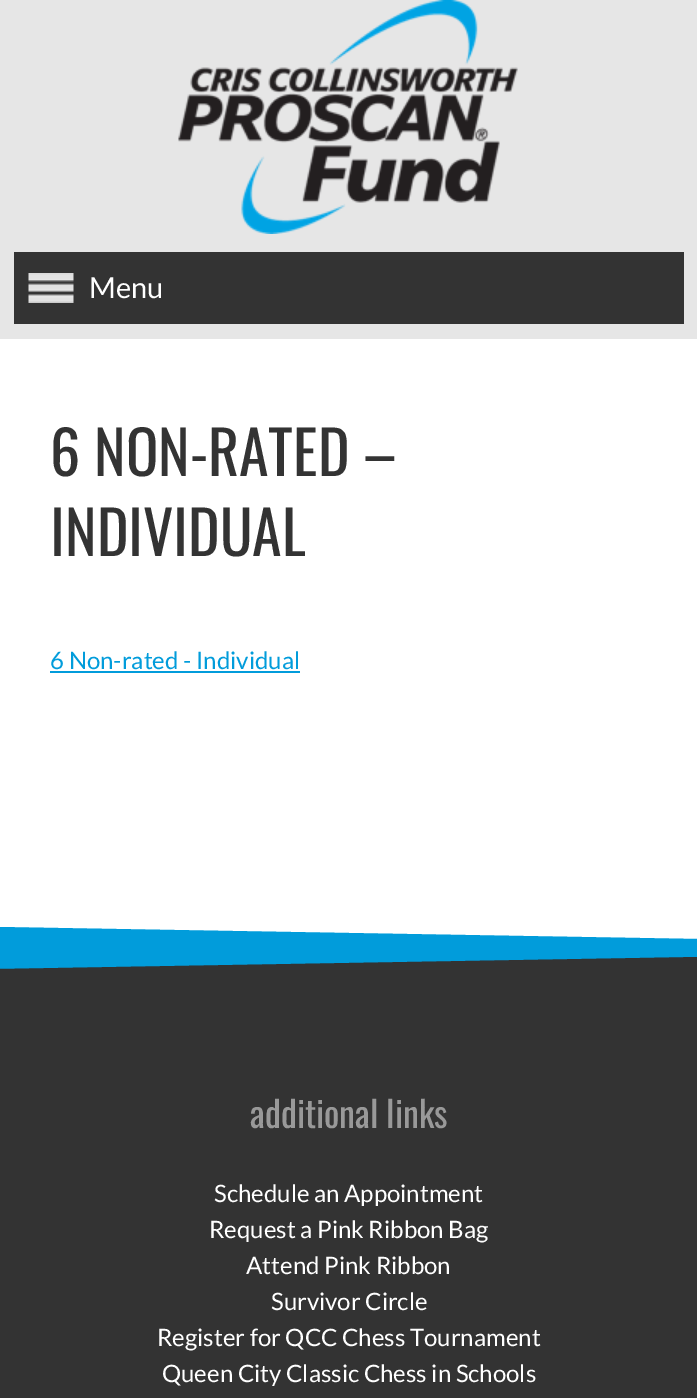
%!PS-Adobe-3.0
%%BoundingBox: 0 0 697 1398
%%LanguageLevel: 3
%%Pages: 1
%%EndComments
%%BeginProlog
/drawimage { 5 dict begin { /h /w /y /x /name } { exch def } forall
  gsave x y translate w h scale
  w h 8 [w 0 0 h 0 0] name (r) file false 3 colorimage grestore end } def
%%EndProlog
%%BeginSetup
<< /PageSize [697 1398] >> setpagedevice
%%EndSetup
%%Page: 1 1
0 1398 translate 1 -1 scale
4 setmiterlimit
1 setgray
0 0 697 1398 rectfill
0.902 setgray
0 0 697 339 rectfill
(images/1.raw) 178 0 340 234 drawimage
0.2 setgray
14 252 670 72 rectfill
(images/2.raw) 28 273 46 30 drawimage
0.004 0.612 0.859 setrgbcolor
50 671 250 2 rectfill
newpath 0 927 moveto 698 939 lineto 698 1344 lineto 0 1332 lineto closepath fill
0.2 setgray
newpath 0 969 moveto 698 957 lineto 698 1137 lineto 0 1149 lineto closepath fill
0 1137 697 261 rectfill
/Lato-Regular [29 0 0 -29 0 0] selectfont
1 setgray
89 298 moveto (Menu) show
/Oswald-Regular [60 0 0 -60 0 0] selectfont
0.2 setgray
50 476 moveto (6 NON-RATED –) show
50 556 moveto (INDIVIDUAL) show
/Lato-Regular [24 0 0 -24 0 0] selectfont
0.004 0.612 0.859 setrgbcolor
50 669 moveto (6 Non-rated - Individual) show
/Oswald-Regular [36 0 0 -36 0 0] selectfont
0.6 setgray
250 1128 moveto (additional links) show
/Lato-Regular [24 0 0 -24 0 0] selectfont
1 setgray
214 1202 moveto (Schedule an Appointment) show
209 1238 moveto (Request a Pink Ribbon Bag) show
246 1274 moveto (Attend Pink Ribbon) show
271 1310 moveto (Survivor Circle) show
157 1346 moveto (Register for QCC Chess Tournament) show
162 1382 moveto (Queen City Classic Chess in Schools) show
showpage
%%EOF
